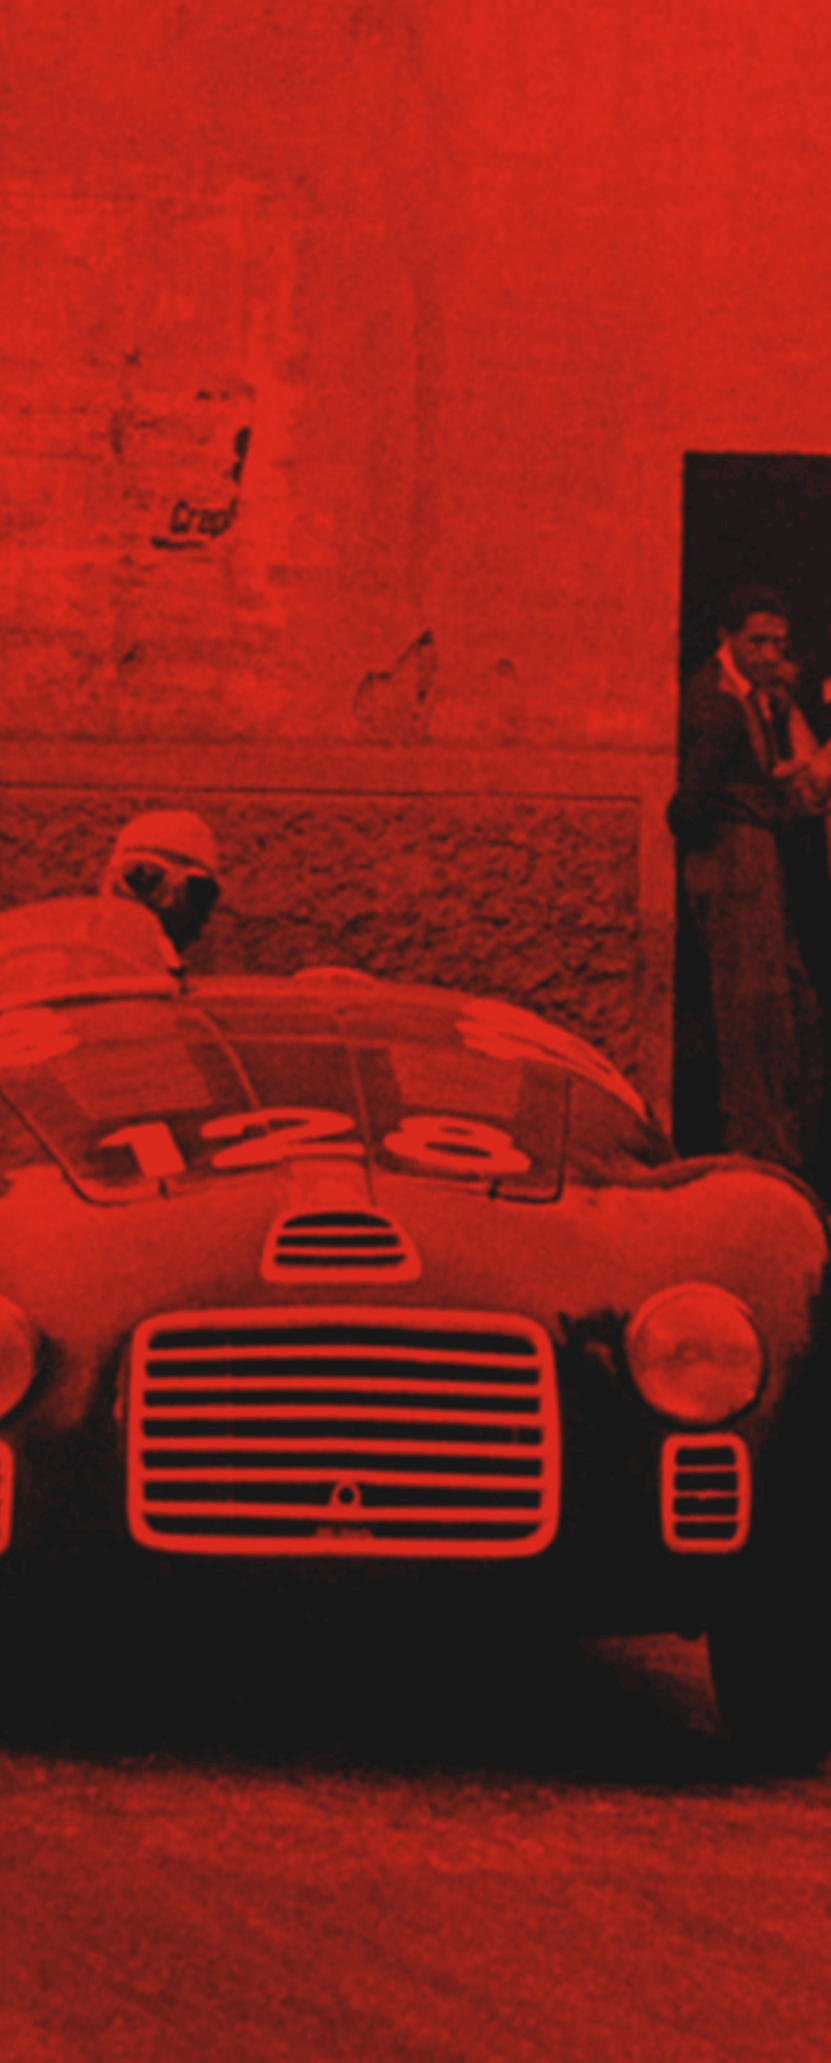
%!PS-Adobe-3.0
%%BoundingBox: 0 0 831 2063
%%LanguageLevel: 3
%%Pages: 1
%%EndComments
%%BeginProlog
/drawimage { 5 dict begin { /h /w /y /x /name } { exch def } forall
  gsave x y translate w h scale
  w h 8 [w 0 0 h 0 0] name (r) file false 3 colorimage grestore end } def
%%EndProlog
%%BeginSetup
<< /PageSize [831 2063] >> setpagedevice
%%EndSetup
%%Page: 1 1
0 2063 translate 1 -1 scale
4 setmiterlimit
1 setgray
0 0 831 2063 rectfill
(images/1.raw) 0 0 831 2063 drawimage
showpage
%%EOF
